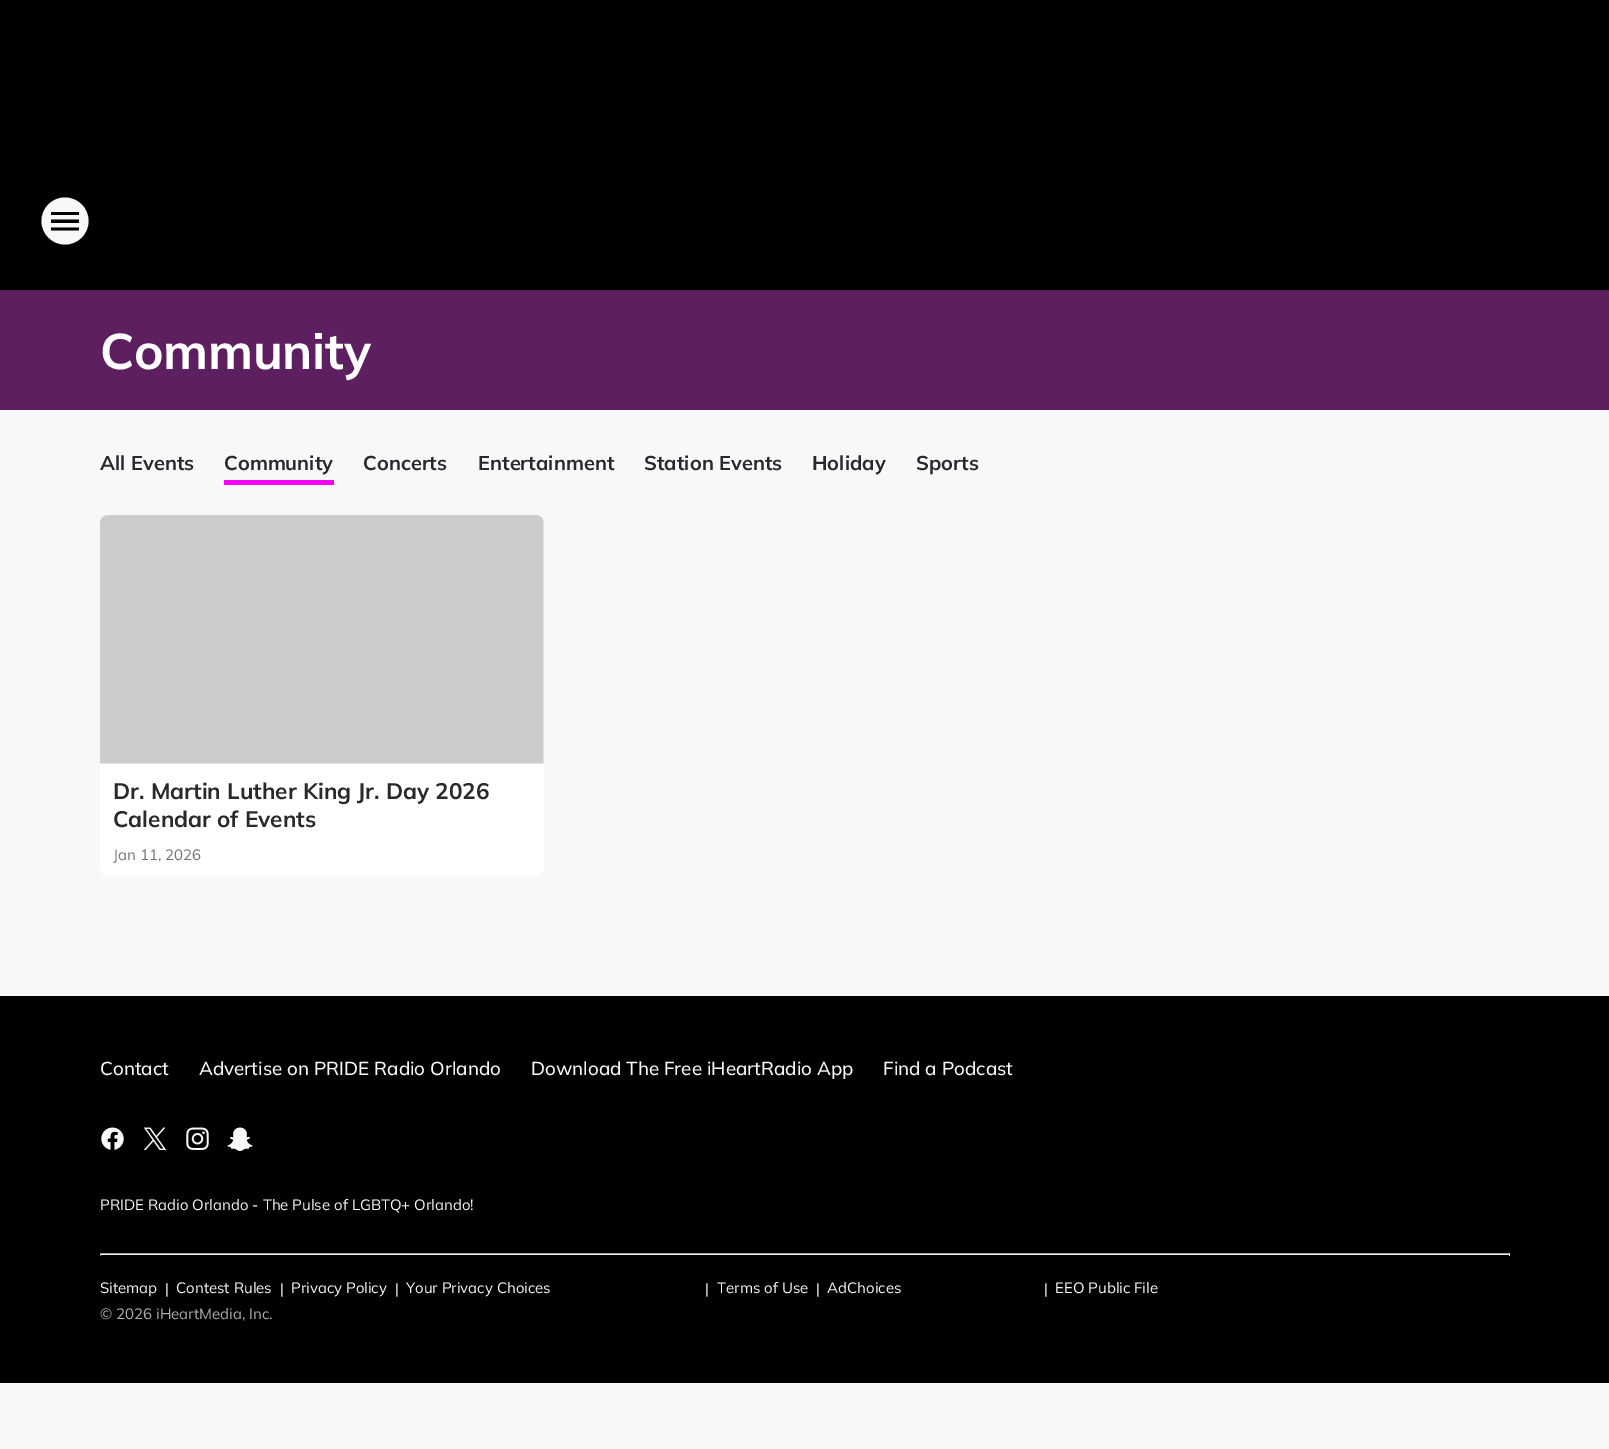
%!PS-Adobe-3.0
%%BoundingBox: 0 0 1609 1449
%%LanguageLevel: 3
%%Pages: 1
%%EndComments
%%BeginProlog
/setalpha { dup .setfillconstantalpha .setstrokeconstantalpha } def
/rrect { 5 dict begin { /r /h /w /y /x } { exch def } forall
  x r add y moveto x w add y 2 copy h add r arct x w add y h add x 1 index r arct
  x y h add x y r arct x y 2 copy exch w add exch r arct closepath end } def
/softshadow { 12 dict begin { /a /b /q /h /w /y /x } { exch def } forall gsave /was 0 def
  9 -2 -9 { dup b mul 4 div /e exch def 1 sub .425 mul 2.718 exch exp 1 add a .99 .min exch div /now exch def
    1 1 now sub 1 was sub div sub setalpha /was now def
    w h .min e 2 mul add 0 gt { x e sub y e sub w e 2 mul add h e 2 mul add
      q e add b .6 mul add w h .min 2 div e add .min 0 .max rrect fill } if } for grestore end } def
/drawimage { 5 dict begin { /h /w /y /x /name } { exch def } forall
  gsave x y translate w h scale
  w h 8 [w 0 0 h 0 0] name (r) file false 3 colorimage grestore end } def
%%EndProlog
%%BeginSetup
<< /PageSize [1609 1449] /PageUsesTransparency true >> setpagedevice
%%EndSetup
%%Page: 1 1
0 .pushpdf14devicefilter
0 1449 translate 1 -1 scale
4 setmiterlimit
0.965 0.973 0.976 setrgbcolor
0 0 1609 1449 rectfill
0 setgray
0 0 1609 153 rectfill
0.365 0.122 0.373 setrgbcolor
0 290 1609 120 rectfill
0 setgray
4 158 1602 130 0 2 1 softshadow
0 153 1609 137 rectfill
0.965 0.973 0.976 setrgbcolor
newpath 65 221 23.5 0 360 arc closepath fill
0 setgray
newpath 51 230.5 moveto 79 230.5 lineto 79 227.5 lineto 51 227.5 lineto closepath 51 223 moveto 79 223 lineto 79 219.5 lineto 51 219.5 lineto closepath 51 212 moveto 51 215 lineto 79 215 lineto 79 212 lineto closepath eofill
1 0 0.965 setrgbcolor
224 480 110 5 rectfill
1 setgray
100 515 444 361 8 rrect fill
(images/1.raw) 100 515 444 249 drawimage
0 setgray
0 996 1609 387 rectfill
(images/2.raw) 101 1127 23 23 drawimage
(images/3.raw) 143 1127 24 23 drawimage
(images/4.raw) 186 1127 23 23 drawimage
(images/5.raw) 227 1127 26 24 drawimage
0.624 setgray
100 1253 1410 1 rectfill
0.933 setgray
1509 1253 1 3 rectfill
100 1254 1410 1 rectfill
0.624 setgray
100 1253 1 3 rectfill
/Mulish-Bold [50 0 0 -50 0 0] selectfont
1 setgray
100 369 moveto -0.25 0 (Community) ashow
/Mulish-Bold [20 0 0 -20 0 0] selectfont
0.153 0.161 0.176 setrgbcolor
100 470 moveto (All Events) show
224 470 moveto (Community) show
363 470 moveto (Concerts) show
478 470 moveto (Entertainment) show
644 470 moveto (Station Events) show
812 470 moveto (Holiday) show
916 470 moveto (Sports) show
/Mulish-Bold [22.5 0 0 -22.5 0 0] selectfont
113 799 moveto (Dr. Martin Luther King Jr. Day 2026) show
113 827 moveto (Calendar of Events) show
/Mulish-Regular [15 0 0 -15 0 0] selectfont
0.443 0.447 0.467 setrgbcolor
113 860 moveto (Jan 11, 2026) show
/Mulish-Medium [18.75 0 0 -18.75 0 0] selectfont
0.965 0.973 0.976 setrgbcolor
100 1075 moveto (Contact) show
199 1075 moveto (Advertise on PRIDE Radio Orlando) show
531 1075 moveto (Download The Free iHeartRadio App) show
883 1075 moveto (Find a Podcast) show
/Mulish-Regular [15 0 0 -15 0 0] selectfont
100 1210 moveto (PRIDE Radio Orlando - The Pulse of LGBTQ+ Orlando!) show
100 1293 moveto (Sitemap) show
165 1294 moveto (|) show
176 1293 moveto (Contest Rules) show
280 1294 moveto (|) show
291 1293 moveto (Privacy Policy) show
395 1294 moveto (|) show
406 1293 moveto (Your Privacy Choices) show
705 1294 moveto (|) show
717 1293 moveto (Terms of Use) show
816 1294 moveto (|) show
827 1293 moveto (AdChoices) show
1044 1294 moveto (|) show
1055 1293 moveto (EEO Public File) show
0.663 0.686 0.698 setrgbcolor
100 1319 moveto (© 2026 iHeartMedia, Inc.) show
.poppdf14devicefilter showpage
%%EOF
